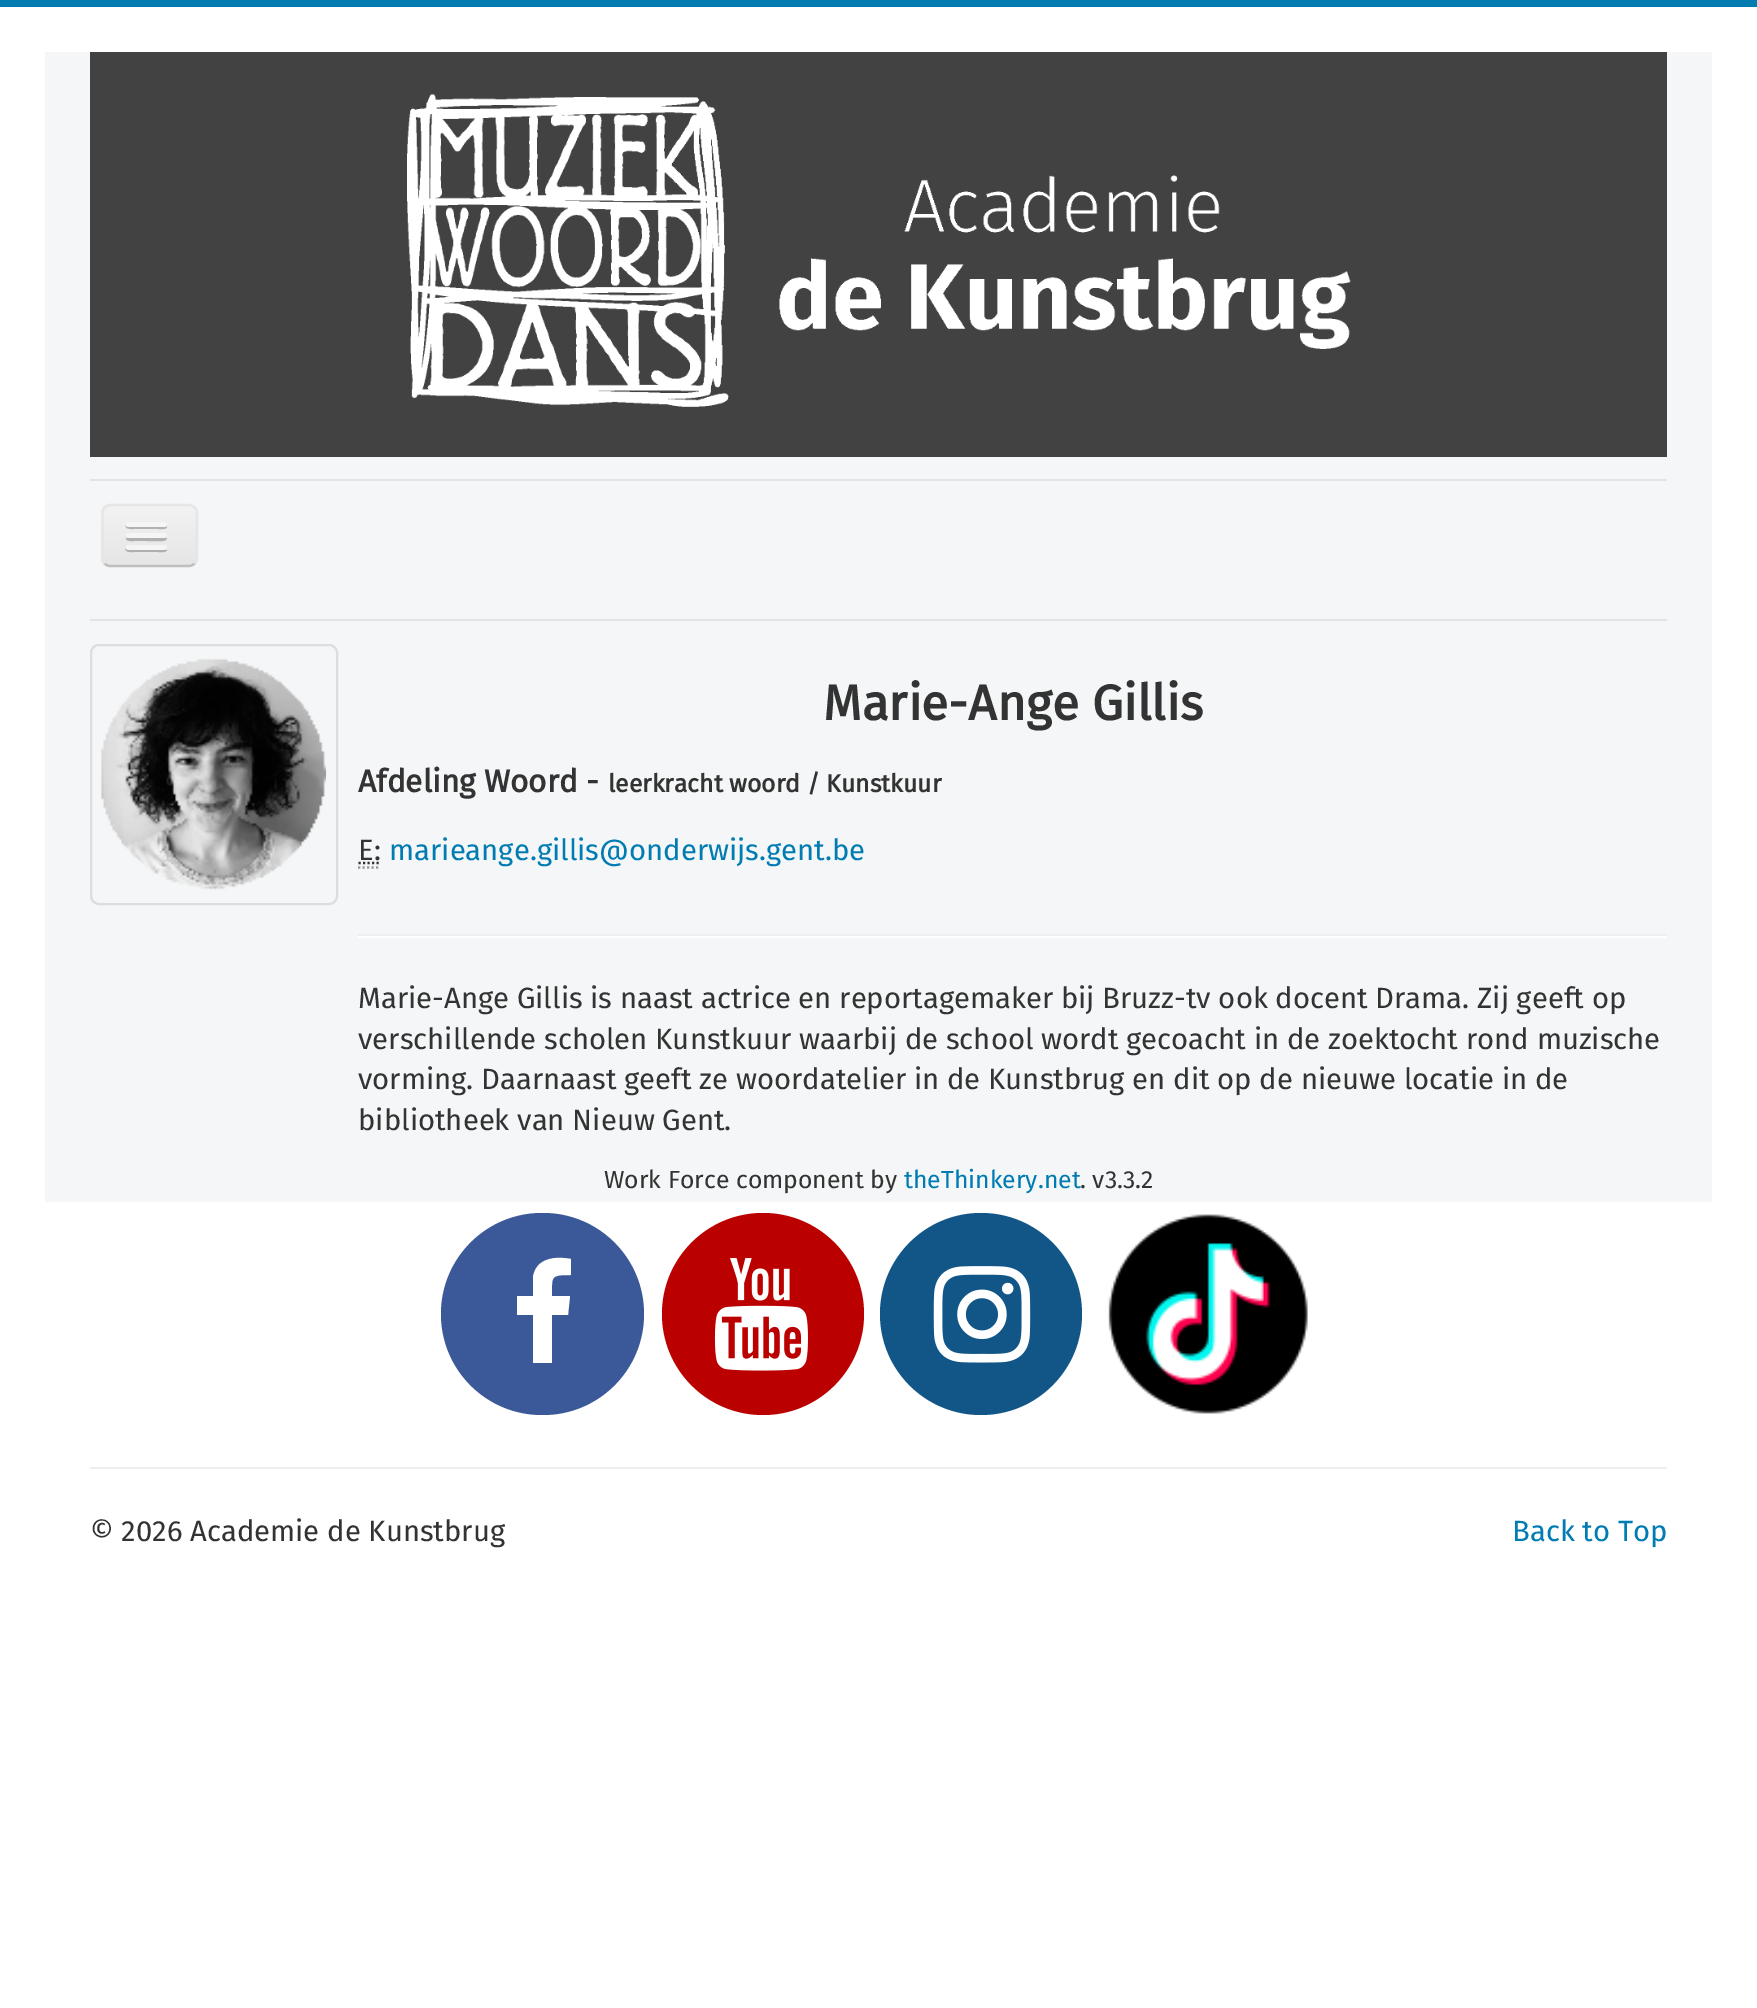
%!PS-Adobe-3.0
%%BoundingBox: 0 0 1757 2008
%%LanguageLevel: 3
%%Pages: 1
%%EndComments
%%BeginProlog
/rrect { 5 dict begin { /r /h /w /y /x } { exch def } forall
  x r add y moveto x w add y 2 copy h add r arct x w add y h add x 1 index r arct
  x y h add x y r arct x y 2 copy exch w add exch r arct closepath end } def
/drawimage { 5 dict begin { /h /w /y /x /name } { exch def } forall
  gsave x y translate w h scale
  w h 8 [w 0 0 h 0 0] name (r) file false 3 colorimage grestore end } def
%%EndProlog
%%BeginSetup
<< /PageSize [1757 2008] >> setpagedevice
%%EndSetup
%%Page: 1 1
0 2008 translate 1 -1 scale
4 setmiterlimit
1 setgray
0 0 1757 2008 rectfill
0 0.486 0.698 setrgbcolor
0 0 1757 7 rectfill
0.957 0.965 0.969 setrgbcolor
45 52 1667 1150 rectfill
0.259 setgray
90 52 1577 405 rectfill
(images/1.raw) 407 94 944 313 drawimage
0.886 0.894 0.894 setrgbcolor
90 479 1577 2 rectfill
90 619 1577 2 rectfill
gsave
101 504 97 63 9 rrect clip newpath
gsave newpath 101 506 moveto 198 506 lineto 198 565 lineto 101 565 lineto closepath clip newpath
<< /ShadingType 2 /ColorSpace /DeviceRGB /Coords [150 506 150 565] /Extend [true true] /Function << /FunctionType 2 /Domain [0 1] /C0 [0.949 0.949 0.949] /C1 [0.902 0.902 0.902] /N 1 >> >> shfill grestore
grestore
0.749 setgray
2.2 setlinewidth
newpath 194.5 563.5 moveto 193 565 191 566 189 566 curveto 110 566 lineto 108 566 106 565 104.5 563.5 curveto stroke
0.902 setgray
newpath 104.5 563.5 moveto 103 562 102.5 560 102.5 558 curveto 102.5 513 lineto 102.5 511 103 509 104.5 507.5 curveto 106 506 108 505 110 505 curveto 189 505 lineto 191 505 193 506 194.5 507.5 curveto 196 509 197 511 197 513 curveto 197 558 lineto 197 560 196 562 194.5 563.5 curveto stroke
0.698 setgray
newpath 126 525 moveto 124 530 134 529 134 529 curveto 158 529 lineto 160 529 166 530 167 527 curveto 166 525 lineto 166 526 165 526 164 526 curveto 128 526 lineto 127 526 127 526 126 525 curveto closepath fill
0.961 setgray
126 522 41 5 2.5 rrect fill
0.69 setgray
newpath 127 537 moveto 123 542 134 541 134 541 curveto 146 541 lineto 150 541 164 542 166 540 curveto 167 539 167 538 166 537 curveto 165 538 lineto 128 538 lineto closepath fill
0.961 setgray
126 533 41 5 2.5 rrect fill
0.686 setgray
newpath 126 548 moveto 123 553 134 552 134 552 curveto 158 552 lineto 160 552 166 553 167 550 curveto 166 548 lineto 165 549 lineto 128 549 lineto closepath fill
0.961 setgray
126 545 41 5 2.5 rrect fill
0.867 setgray
2 setlinewidth
91 645 246 259 8 rrect stroke
(images/2.raw) 101 658 226 232 drawimage
0.6 setgray
2.2 setlinewidth
[2.25 2.25] 0 setdash
newpath 358 867.5 moveto 380 867.5 lineto stroke
0.2 setgray
newpath 358.5 863 moveto 381 863 lineto stroke
0.933 setgray
358 934 1309 2 rectfill
1 setgray
358 936 1309 2 rectfill
0.231 0.349 0.596 setrgbcolor
441 1213 203 202 101 rrect fill
1 setgray
newpath 571 1259 moveto 571 1275 lineto 550 1275 552 1276 552 1296 curveto 570 1296 lineto 568 1315 lineto 552 1315 lineto 552 1363 lineto 533 1363 lineto 533 1315 lineto 517 1315 lineto 517 1296 lineto 533 1296 lineto 533 1277 lineto 536 1258 555 1256 571 1259 curveto closepath fill
0.733 0 0 setrgbcolor
newpath 763 1314 101 0 360 arc closepath fill
(images/3.raw) 714 1258 94 113 drawimage
0.071 0.337 0.533 setrgbcolor
newpath 981 1314 101 0 360 arc closepath fill
(images/4.raw) 933 1266 98 97 drawimage
(images/5.raw) 1108 1214 200 200 drawimage
0.933 setgray
90 1467 1577 2 rectfill
/FiraSans-Bold [49.5 0 0 -49.5 0 0] selectfont
0.2 setgray
823 720 moveto (Marie-Ange Gillis) show
/FiraSans-Bold [31.5 0 0 -31.5 0 0] selectfont
358 792 moveto (Afdeling Woord -) show
/FiraSans-Bold [24.75 0 0 -24.75 0 0] selectfont
608 792 moveto (leerkracht woord / Kunstkuur) show
/FiraSans-Regular [29.25 0 0 -29.25 0 0] selectfont
358 860 moveto (E:) show
0 0.486 0.698 setrgbcolor
389 860 moveto (marieange.gillis@onderwijs.gent.be) show
0.2 setgray
358 1008 moveto (Marie-Ange Gillis is naast actrice en reportagemaker bij Bruzz-tv ook docent Drama. Zij geeft op) show
358 1049 moveto (verschillende scholen Kunstkuur waarbij de school wordt gecoacht in de zoektocht rond muzische) show
358 1089 moveto (vorming. Daarnaast geeft ze woordatelier in de Kunstbrug en dit op de nieuwe locatie in de) show
358 1130 moveto (bibliotheek van Nieuw Gent.) show
/FiraSans-Regular [24.75 0 0 -24.75 0 0] selectfont
604 1188 moveto (Work Force component by) show
0 0.486 0.698 setrgbcolor
904 1188 moveto (theThinkery.net) show
0.2 setgray
1080 1188 moveto (. v3.3.2) show
/FiraSans-Regular [29.25 0 0 -29.25 0 0] selectfont
90 1541 moveto (© 2026 Academie de Kunstbrug) show
0 0.486 0.698 setrgbcolor
1512 1541 moveto (Back to Top) show
showpage
%%EOF
